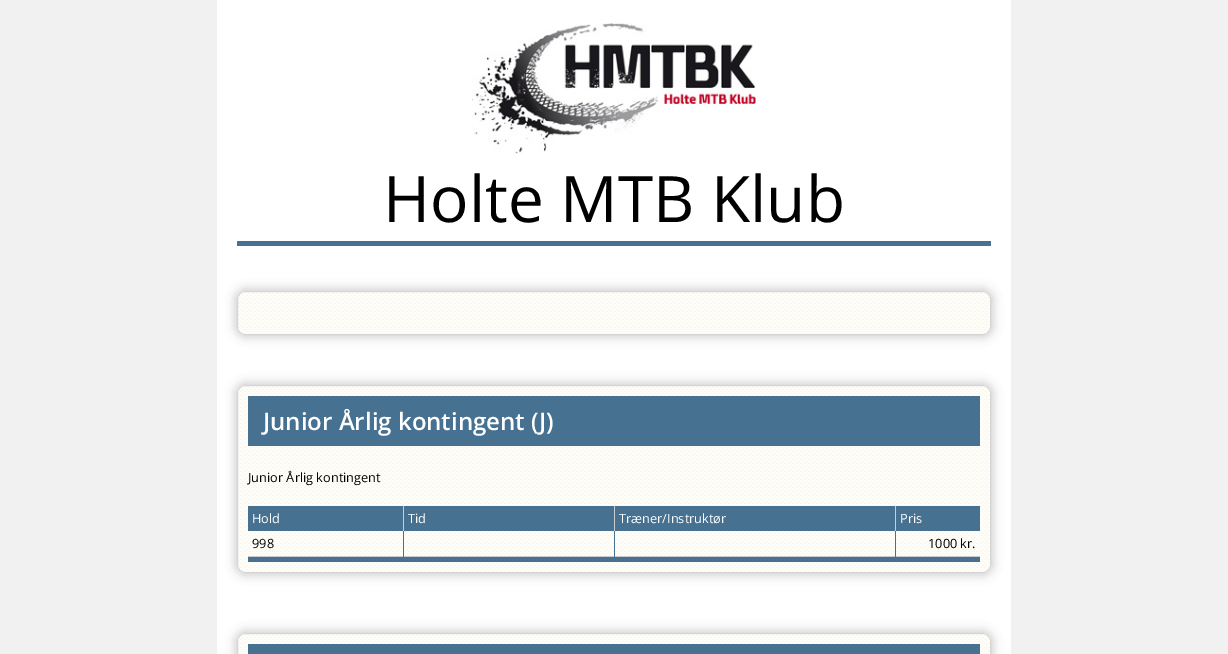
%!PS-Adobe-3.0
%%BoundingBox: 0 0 1228 654
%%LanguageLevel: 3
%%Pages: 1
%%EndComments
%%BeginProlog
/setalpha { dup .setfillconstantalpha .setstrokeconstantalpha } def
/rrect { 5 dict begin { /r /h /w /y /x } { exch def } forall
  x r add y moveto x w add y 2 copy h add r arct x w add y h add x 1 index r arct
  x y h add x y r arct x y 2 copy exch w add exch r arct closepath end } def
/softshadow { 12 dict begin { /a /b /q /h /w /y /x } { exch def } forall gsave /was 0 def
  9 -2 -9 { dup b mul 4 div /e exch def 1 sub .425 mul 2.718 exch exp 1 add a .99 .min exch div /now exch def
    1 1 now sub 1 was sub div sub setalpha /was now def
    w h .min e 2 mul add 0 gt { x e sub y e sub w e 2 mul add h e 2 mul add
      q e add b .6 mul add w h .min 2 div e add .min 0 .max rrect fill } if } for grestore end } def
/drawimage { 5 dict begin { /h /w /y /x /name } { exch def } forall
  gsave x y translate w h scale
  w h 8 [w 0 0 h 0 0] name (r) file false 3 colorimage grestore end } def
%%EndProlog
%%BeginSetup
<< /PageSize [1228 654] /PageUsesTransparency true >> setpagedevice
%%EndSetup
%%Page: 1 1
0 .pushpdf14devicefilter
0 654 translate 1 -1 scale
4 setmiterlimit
0.945 setgray
0 0 1228 654 rectfill
1 setgray
217 0 794 654 rectfill
(images/1.raw) 472 23 284 131 drawimage
0.278 0.443 0.565 setrgbcolor
237 241 754 5 rectfill
0 setgray
235 289 758 48 10 5 0.2 softshadow
(images/2.raw) 237 291 754 44 drawimage
0.839 setgray
237.5 291.5 753 43 7.5 rrect stroke
0 setgray
235 383 758 192 10 5 0.2 softshadow
(images/3.raw) 237 385 754 188 drawimage
0.839 setgray
237.5 385.5 753 187 7.5 rrect stroke
0.278 0.443 0.565 setrgbcolor
248 396 732 50 rectfill
248 506 732 25 rectfill
0.8 setgray
403 506 1 25 rectfill
614 506 1 25 rectfill
895 506 1 25 rectfill
248 556 732 1 rectfill
0.278 0.443 0.565 setrgbcolor
403 531 1 26 rectfill
614 531 1 26 rectfill
895 531 1 26 rectfill
248 557 732 5 rectfill
0 setgray
235 631 758 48 10 5 0.2 softshadow
(images/4.raw) 237 633 754 21 drawimage
0.839 setgray
237.5 633.5 753 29 7.5 rrect stroke
0.278 0.443 0.565 setrgbcolor
248 644 732 10 rectfill
/OpenSans-Regular [64 0 0 -64 0 0] selectfont
0 setgray
383 222 moveto (Holte MTB Klub) show
/OpenSans-SemiBold [24 0 0 -24 0 0] selectfont
1 setgray
263 430 moveto (Junior Årlig kontingent \(J\)) show
/OpenSans-Regular [12.75 0 0 -12.75 0 0] selectfont
0 setgray
248 482 moveto (Junior Årlig kontingent) show
1 setgray
252 523 moveto (Hold) show
408 523 moveto (Tid) show
619 523 moveto (Træner/Instruktør) show
900 523 moveto (Pris) show
0 setgray
252 548 moveto (998) show
928 548 moveto (1000 kr.) show
.poppdf14devicefilter showpage
%%EOF
